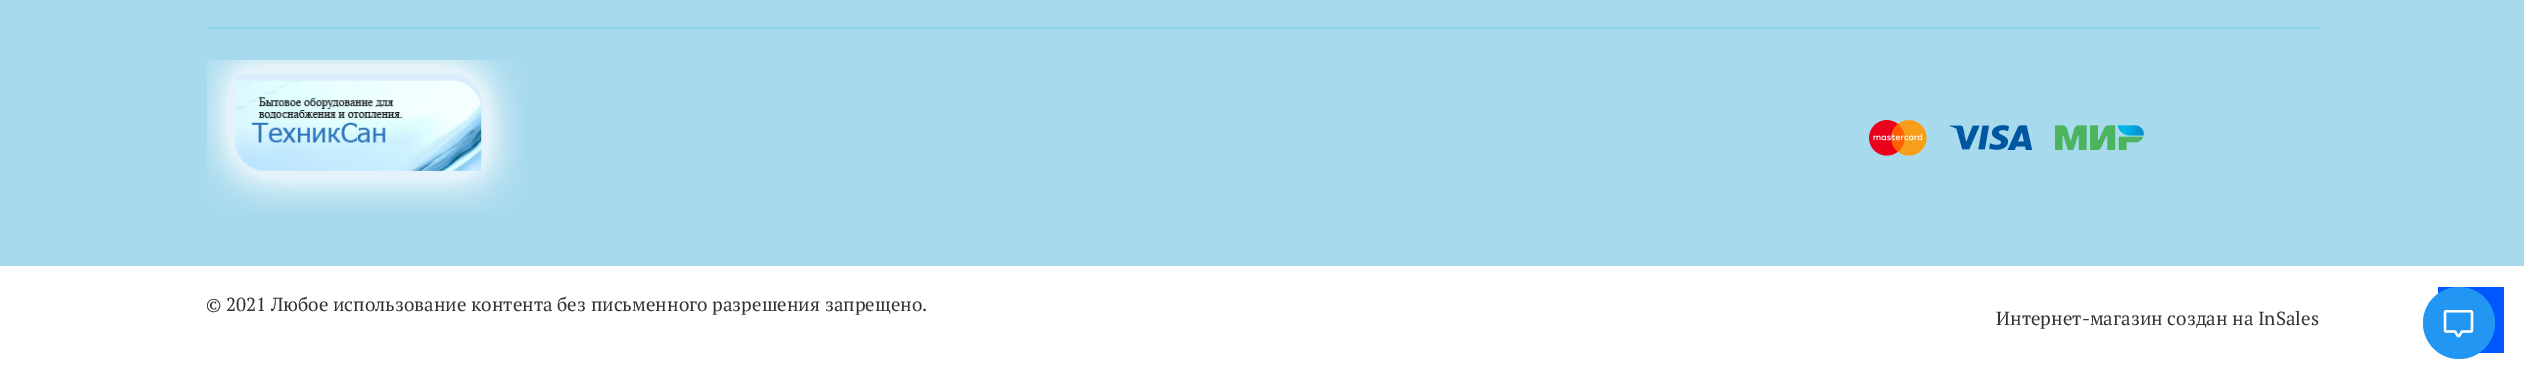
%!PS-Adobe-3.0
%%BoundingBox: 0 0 2524 373
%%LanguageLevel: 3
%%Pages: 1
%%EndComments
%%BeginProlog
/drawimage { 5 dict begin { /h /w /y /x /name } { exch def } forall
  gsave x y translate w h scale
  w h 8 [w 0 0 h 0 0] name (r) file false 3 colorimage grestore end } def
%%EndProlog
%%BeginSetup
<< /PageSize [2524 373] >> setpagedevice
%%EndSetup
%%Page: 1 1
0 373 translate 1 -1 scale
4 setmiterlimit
1 setgray
0 0 2524 373 rectfill
0 0.341 1 setrgbcolor
2438 287 66 66 rectfill
0.129 0.588 0.953 setrgbcolor
newpath 2459 323 36 0 360 arc closepath fill
(images/1.raw) 2443 309 31 29 drawimage
0.659 0.855 0.929 setrgbcolor
0 0 2524 266 rectfill
0.561 0.812 0.91 setrgbcolor
207 27 2112 2 rectfill
(images/2.raw) 207 60 315 152 drawimage
(images/3.raw) 1869 120 58 36 drawimage
(images/4.raw) 1949 125 83 25 drawimage
(images/5.raw) 2055 125 89 25 drawimage
/PTSerif-Regular [18.9 0 0 -18.9 0 0] selectfont
0.2 setgray
206 311 moveto (© 2021 Любое использование контента без письменного разрешения запрещено.) show
1996 325 moveto (Интернет-магазин создан на InSales) show
showpage
%%EOF
